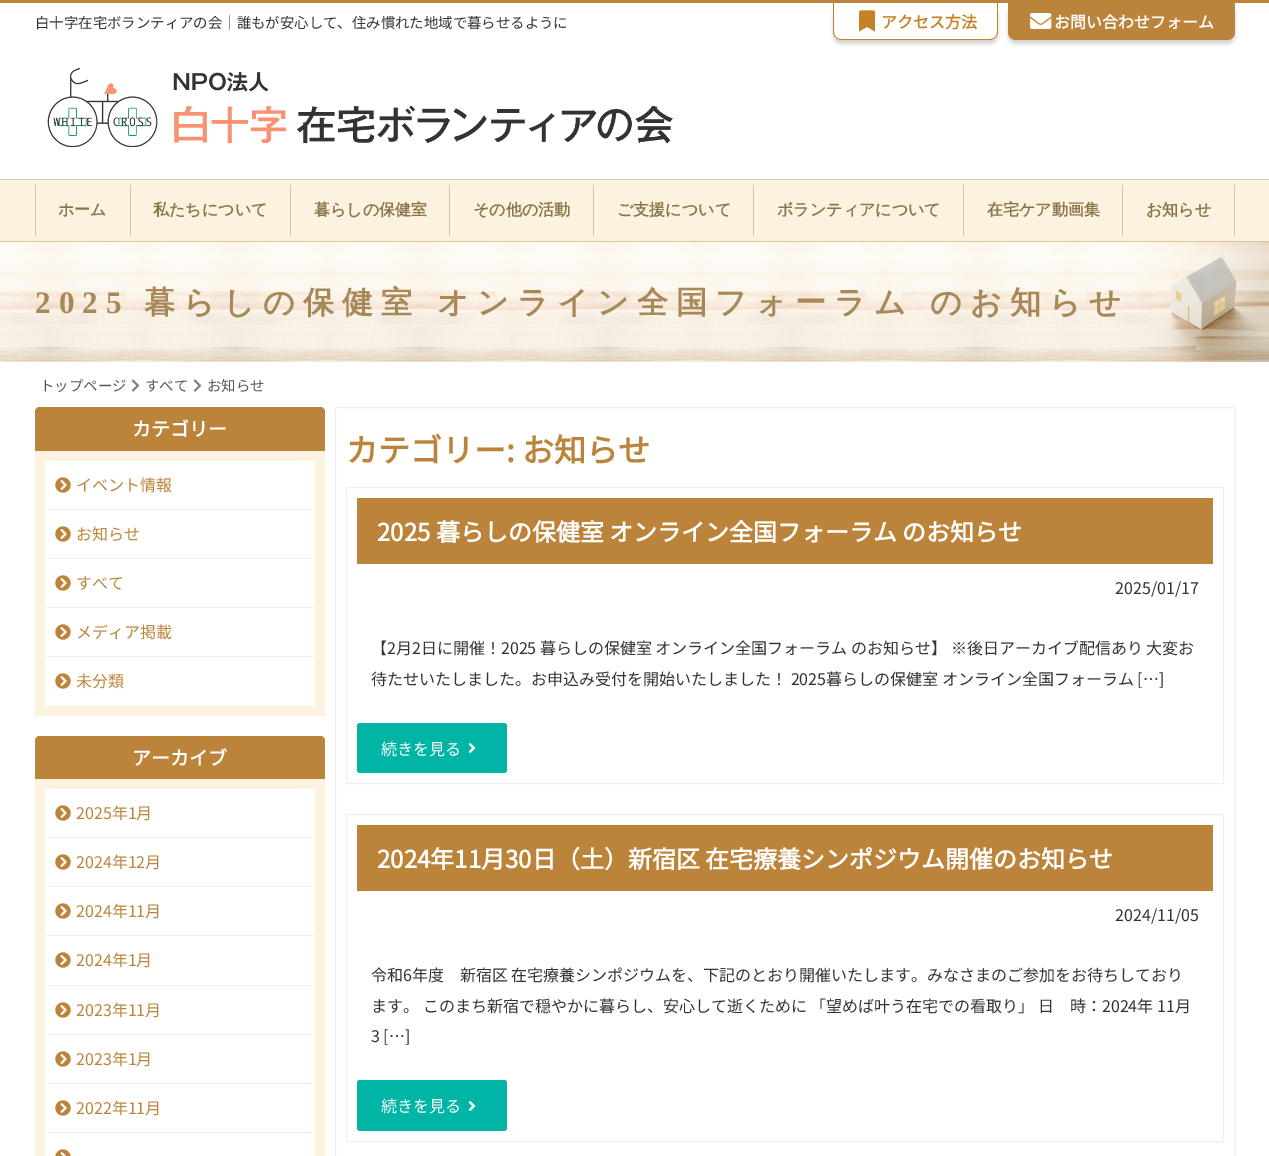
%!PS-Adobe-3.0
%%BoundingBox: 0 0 1269 1156
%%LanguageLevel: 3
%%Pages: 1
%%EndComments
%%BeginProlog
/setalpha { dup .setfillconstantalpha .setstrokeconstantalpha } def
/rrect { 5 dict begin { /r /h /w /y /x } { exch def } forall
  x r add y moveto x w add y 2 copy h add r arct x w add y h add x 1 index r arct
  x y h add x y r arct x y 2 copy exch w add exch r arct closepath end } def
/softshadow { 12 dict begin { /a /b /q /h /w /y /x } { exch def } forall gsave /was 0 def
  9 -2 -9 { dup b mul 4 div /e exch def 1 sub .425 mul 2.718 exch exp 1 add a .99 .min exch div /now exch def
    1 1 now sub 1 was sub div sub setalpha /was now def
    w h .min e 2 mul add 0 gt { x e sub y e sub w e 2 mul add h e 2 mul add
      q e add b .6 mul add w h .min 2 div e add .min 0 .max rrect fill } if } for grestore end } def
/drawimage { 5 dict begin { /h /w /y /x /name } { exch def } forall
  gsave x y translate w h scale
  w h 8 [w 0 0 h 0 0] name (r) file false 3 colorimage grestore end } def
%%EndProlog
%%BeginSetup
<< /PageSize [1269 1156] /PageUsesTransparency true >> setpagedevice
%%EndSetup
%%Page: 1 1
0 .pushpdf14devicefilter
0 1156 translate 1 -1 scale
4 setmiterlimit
1 setgray
0 0 1269 1156 rectfill
0.737 0.518 0.231 setrgbcolor
0 0 1269 3 rectfill
0.824 setgray
833 7 165 37 8 2 1 softshadow
1 setgray
newpath 833 3 moveto 998 3 lineto 998 32 lineto 998 36.5 994.5 40 990 40 curveto 841 40 lineto 836.5 40 833 36.5 833 32 curveto closepath fill
0.776 0.51 0.149 setrgbcolor
newpath 833 3 moveto 998 3 lineto 998 32 lineto 998 36 994 40 990 40 curveto 841 40 lineto 837 40 833 36 833 32 curveto closepath 834 3 moveto 997 3 lineto 997 32 lineto 997 36 994 39 990 39 curveto 841 39 lineto 837 39 834 36 834 32 curveto closepath eofill
(images/1.raw) 859 10 16 22 drawimage
0.824 setgray
1008 7 227 37 8 2 1 softshadow
0.737 0.518 0.231 setrgbcolor
newpath 1008 3 moveto 1235 3 lineto 1235 32 lineto 1235 36.5 1231.5 40 1227 40 curveto 1016 40 lineto 1011.5 40 1008 36.5 1008 32 curveto closepath fill
(images/2.raw) 1030 13 22 16 drawimage
(images/3.raw) 47 67 626 80 drawimage
0.984 0.953 0.878 setrgbcolor
0 180 1269 61 rectfill
0.851 0.773 0.624 setrgbcolor
0 179 1269 1 rectfill
0 241 1269 1 rectfill
1234 185 1 51 rectfill
35 185 1 51 rectfill
0.839 0.773 0.639 setrgbcolor
130 185 1 51 rectfill
290 185 1 51 rectfill
449 185 1 51 rectfill
593 185 1 51 rectfill
753 185 1 51 rectfill
963 185 1 51 rectfill
1122 185 1 51 rectfill
(images/4.raw) 0 242 1269 120 drawimage
(images/5.raw) 131 379 9 13 drawimage
(images/5.raw) 193 379 9 13 drawimage
0.737 0.518 0.231 setrgbcolor
newpath 40 407 moveto 320 407 lineto 323 407 325 409 325 412 curveto 325 451 lineto 35 451 lineto 35 412 lineto 35 409 37 407 40 407 curveto closepath fill
0.984 0.953 0.878 setrgbcolor
35 451 290 265 rectfill
1 setgray
45 461 270 48 rectfill
(images/6.raw) 55 477 16 16 drawimage
0.933 setgray
45 509 270 1 rectfill
1 setgray
45 510 270 48 rectfill
(images/6.raw) 55 526 16 16 drawimage
0.933 setgray
45 558 270 1 rectfill
1 setgray
45 559 270 48 rectfill
(images/6.raw) 55 575 16 16 drawimage
0.933 setgray
45 607 270 1 rectfill
1 setgray
45 608 270 48 rectfill
(images/6.raw) 55 624 16 16 drawimage
0.933 setgray
45 656 270 1 rectfill
1 setgray
45 657 270 49 rectfill
(images/6.raw) 55 673 16 16 drawimage
0.737 0.518 0.231 setrgbcolor
newpath 40 736 moveto 320 736 lineto 323 736 325 738 325 741 curveto 325 779 lineto 35 779 lineto 35 741 lineto 35 738 37 736 40 736 curveto closepath fill
0.984 0.953 0.878 setrgbcolor
35 779 290 377 rectfill
1 setgray
45 789 270 48 rectfill
(images/6.raw) 55 805 16 16 drawimage
0.933 setgray
45 837 270 1 rectfill
1 setgray
45 838 270 48 rectfill
(images/6.raw) 55 854 16 16 drawimage
0.933 setgray
45 886 270 1 rectfill
1 setgray
45 887 270 48 rectfill
(images/6.raw) 55 903 16 16 drawimage
0.933 setgray
45 935 270 1 rectfill
1 setgray
45 936 270 49 rectfill
(images/6.raw) 55 952 16 16 drawimage
0.933 setgray
45 985 270 1 rectfill
1 setgray
45 986 270 48 rectfill
(images/6.raw) 55 1002 16 16 drawimage
0.933 setgray
45 1034 270 1 rectfill
1 setgray
45 1035 270 48 rectfill
(images/6.raw) 55 1051 16 16 drawimage
0.933 setgray
45 1083 270 1 rectfill
1 setgray
45 1084 270 48 rectfill
(images/6.raw) 55 1100 16 16 drawimage
0.933 setgray
45 1132 270 1 rectfill
1 setgray
45 1133 270 23 rectfill
(images/7.raw) 55 1149 16 7 drawimage
0.933 setgray
335.5 407.5 899 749 rectstroke
0.937 setgray
346.5 487.5 877 296 rectstroke
0.737 0.518 0.231 setrgbcolor
357 498 856 66 rectfill
0 0.706 0.651 setrgbcolor
357 723 150 50 3 rrect fill
(images/8.raw) 468 743 8 10 drawimage
0.937 setgray
346.5 814.5 877 327 rectstroke
0.737 0.518 0.231 setrgbcolor
357 825 856 66 rectfill
0 0.706 0.651 setrgbcolor
357 1080 150 51 3 rrect fill
(images/8.raw) 468 1101 8 10 drawimage
/NotoSansJP-Thin [14.4 0 0 -14.4 0 0] selectfont
0.2 setgray
35 28 moveto (白十字在宅ボランティアの会｜誰もが安心して、住み慣れた地域で暮らせるように) show
/NotoSansJP-Bold [16 0 0 -16 0 0] selectfont
0.776 0.51 0.149 setrgbcolor
881 28 moveto (アクセス方法) show
1 setgray
1054 28 moveto (お問い合わせフォーム) show
/WenQuanYiZenHei-Bold [16 0 0 -16 0 0] selectfont
0.549 0.459 0.286 setrgbcolor
58 215 moveto (ホーム) show
153 215 moveto (私たちについて) show
314 215 moveto (暮らしの保健室) show
473 215 moveto (その他の活動) show
617 215 moveto (ご支援について) show
777 215 moveto (ボランティアについて) show
987 215 moveto (在宅ケア動画集) show
1146 215 moveto (お知らせ) show
/LiberationSerif-Bold [31.2 0 0 -31.2 0 0] selectfont
0.655 0.533 0.349 setrgbcolor
35 313 moveto 8 0 (2025) ashow
/WenQuanYiZenHei-Bold [31.2 0 0 -31.2 0 0] selectfont
144 313 moveto -1 0 32 8 0 (暮らしの保健室 オンライン全国フォーラム のお知らせ) awidthshow
/NotoSansJP-Thin [14.4 0 0 -14.4 0 0] selectfont
0.333 setgray
40 391 moveto (トップページ) show
145 391 moveto (すべて) show
207 391 moveto (お知らせ) show
/NotoSansJP-Bold [19 0 0 -19 0 0] selectfont
1 setgray
132 436 moveto (カテゴリー) show
/NotoSansJP-Thin [16 0 0 -16 0 0] selectfont
0.737 0.518 0.231 setrgbcolor
76 491 moveto (イベント情報) show
76 540 moveto (お知らせ) show
76 589 moveto (すべて) show
76 638 moveto (メディア掲載) show
76 687 moveto (未分類) show
/NotoSansJP-Bold [19 0 0 -19 0 0] selectfont
1 setgray
132 765 moveto (アーカイブ) show
/NotoSansJP-Thin [16 0 0 -16 0 0] selectfont
0.737 0.518 0.231 setrgbcolor
76 819 moveto (2025年1月) show
76 868 moveto (2024年12月) show
76 917 moveto (2024年11月) show
76 966 moveto (2024年1月) show
76 1016 moveto (2023年11月) show
76 1065 moveto (2023年1月) show
76 1114 moveto (2022年11月) show
/NotoSansJP-Bold [32 0 0 -32 0 0] selectfont
346 462 moveto (カテゴリー: お知らせ) show
/NotoSansJP-Bold [24 0 0 -24 0 0] selectfont
1 setgray
377 541 moveto (2025 暮らしの保健室 オンライン全国フォーラム のお知らせ) show
/NotoSansJP-Thin [16 0 0 -16 0 0] selectfont
0.2 setgray
1115 594 moveto (2025/01/17) show
371 654 moveto (【2月2日に開催！2025 暮らしの保健室 オンライン全国フォーラム のお知らせ】 ※後日アーカイブ配信あり 大変お) show
371 685 moveto (待たせいたしました。お申込み受付を開始いたしました！ 2025暮らしの保健室 オンライン全国フォーラム […]) show
1 setgray
381 755 moveto (続きを見る) show
/NotoSansJP-Bold [24 0 0 -24 0 0] selectfont
377 868 moveto (2024年11月30日（土）新宿区 在宅療養シンポジウム開催のお知らせ) show
/NotoSansJP-Thin [16 0 0 -16 0 0] selectfont
0.2 setgray
1115 921 moveto (2024/11/05) show
371 981 moveto (令和6年度　新宿区 在宅療養シンポジウムを、下記のとおり開催いたします。みなさまのご参加をお待ちしており) show
371 1012 moveto (ます。 このまち新宿で穏やかに暮らし、安心して逝くために 「望めば叶う在宅での看取り」 日　時：2024年 11月) show
371 1042 moveto (3 […]) show
1 setgray
381 1112 moveto (続きを見る) show
.poppdf14devicefilter showpage
%%EOF
